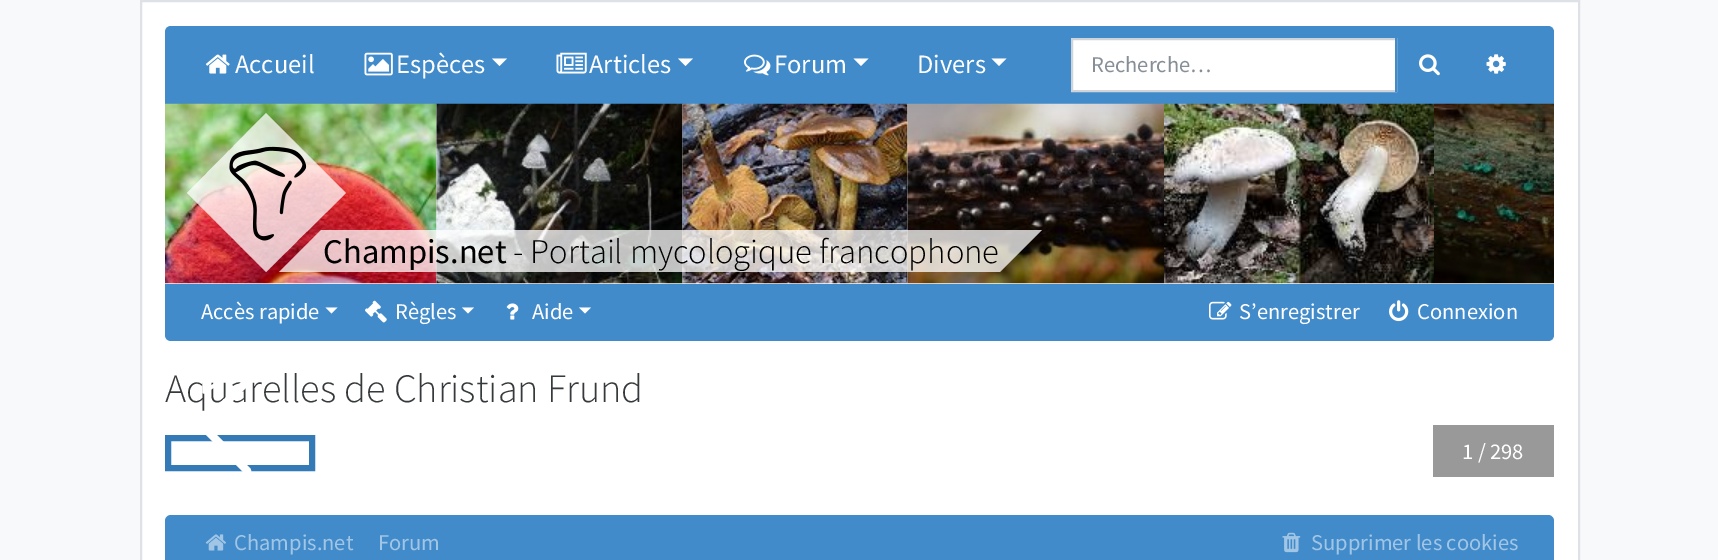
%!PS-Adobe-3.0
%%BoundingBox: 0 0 1718 560
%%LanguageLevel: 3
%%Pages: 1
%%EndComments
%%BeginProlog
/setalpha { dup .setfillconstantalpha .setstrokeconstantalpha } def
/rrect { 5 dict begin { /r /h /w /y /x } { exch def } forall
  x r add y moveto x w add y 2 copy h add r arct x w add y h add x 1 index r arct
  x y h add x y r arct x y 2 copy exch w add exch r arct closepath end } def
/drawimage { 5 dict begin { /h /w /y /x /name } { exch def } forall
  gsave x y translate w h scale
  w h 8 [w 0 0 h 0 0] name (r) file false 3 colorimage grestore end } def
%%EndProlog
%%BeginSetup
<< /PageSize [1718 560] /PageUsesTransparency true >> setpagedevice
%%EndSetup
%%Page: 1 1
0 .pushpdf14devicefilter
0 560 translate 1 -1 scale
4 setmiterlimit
0.973 0.976 0.98 setrgbcolor
0 0 1718 560 rectfill
1 setgray
newpath 141 1 moveto 1579 1 lineto 1579 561 lineto 141 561 lineto closepath gsave fill grestore
0.871 0.886 0.902 setrgbcolor
2 setlinewidth
stroke
0.259 0.545 0.792 setrgbcolor
newpath 171 26 moveto 1548 26 lineto 1551.5 26 1554 28.5 1554 32 curveto 1554 104 lineto 165 104 lineto 165 32 lineto 165 28.5 167.5 26 171 26 curveto closepath fill
(images/1.raw) 205 54 25 20 drawimage
(images/2.raw) 364 52 29 24 drawimage
1 setgray
newpath 492 58.5 moveto 507 58.5 lineto 499.5 66 lineto closepath fill
(images/3.raw) 556 52 31 22 drawimage
newpath 678 58.5 moveto 693 58.5 lineto 685.5 66 lineto closepath fill
(images/4.raw) 744 54 27 22 drawimage
newpath 853.5 58.5 moveto 868.5 58.5 lineto 861 66 lineto closepath fill
newpath 991.5 58.5 moveto 1006.5 58.5 lineto 999 66 lineto closepath fill
newpath 1072 39 moveto 1396 39 lineto 1396 91 lineto 1072 91 lineto closepath gsave fill grestore
0.808 0.831 0.855 setrgbcolor
stroke
0.259 0.545 0.792 setrgbcolor
1395 38 2 54 rectfill
(images/5.raw) 1419 54 21 22 drawimage
(images/6.raw) 1486 54 20 20 drawimage
(images/8.raw) 165 103 272 181 drawimage
(images/9.raw) 436 103 247 181 drawimage
(images/10.raw) 682 103 226 181 drawimage
(images/11.raw) 907 103 257 181 drawimage
(images/12.raw) 1164 103 270 181 drawimage
(images/13.raw) 1434 103 120 181 drawimage
0.75 setalpha
1 setgray
newpath 321 230 moveto 1042 230 lineto 1000 272 lineto 279 272 lineto closepath fill
1 setalpha
0.259 0.545 0.792 setrgbcolor
newpath 165 284 moveto 1554 284 lineto 1554 335 lineto 1554 338.5 1551.5 341 1548 341 curveto 171 341 lineto 167.5 341 165 338.5 165 335 curveto closepath fill
1 setgray
newpath 325.5 307.5 moveto 337.5 307.5 lineto 331.5 313.5 lineto closepath fill
(images/14.raw) 365 300 22 23 drawimage
newpath 462 307.5 moveto 474 307.5 lineto 468 313.5 lineto closepath fill
(images/15.raw) 506 303 13 17 drawimage
newpath 579 307.5 moveto 591 307.5 lineto 585 313.5 lineto closepath fill
(images/16.raw) 1209 301 23 19 drawimage
(images/17.raw) 1389 300 20 22 drawimage
0.2 0.478 0.718 setrgbcolor
6 setlinewidth
168 438 144 30 rectstroke
0.6 setgray
1433 425 121 52 rectfill
0.259 0.545 0.792 setrgbcolor
165 515 1389 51 6 rrect fill
(images/18.raw) 205 534 21 17 drawimage
(images/19.raw) 1282 532 19 21 drawimage
/SourceSansPro-Regular [26.5 0 0 -26.5 0 0] selectfont
1 setgray
235 73 moveto (Accueil) show
396 73 moveto (Espèces) show
589 73 moveto (Articles) show
774 73 moveto (Forum) show
917 73 moveto (Divers) show
/SourceSansPro-Regular [22.5 0 0 -22.5 0 0] selectfont
0.525 0.557 0.588 setrgbcolor
1091 72 moveto (Recherche…) show
/SourceSansPro-Regular [34.6 0 0 -34.6 0 0] selectfont
0 setgray
323 263 moveto (Champis.net) show
0.75 setalpha
1 setgray
newpath 266 113 moveto 346 193 lineto 266 272 lineto 187 193 lineto closepath fill
1 setalpha
(images/7.raw) 229 146 78 95 drawimage
/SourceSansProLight-Light [34.6 0 0 -34.6 0 0] selectfont
0 setgray
513 263 moveto (- Portail mycologique francophone) show
/SourceSansPro-Regular [22.5 0 0 -22.5 0 0] selectfont
1 setgray
201 319 moveto (Accès rapide) show
395 319 moveto (Règles) show
532 319 moveto (Aide) show
1239 319 moveto (S’enregistrer) show
1417 319 moveto (Connexion) show
/SourceSansProLight-Light [40.25 0 0 -40.25 0 0] selectfont
0.216 0.227 0.235 setrgbcolor
165 402 moveto (Aquarelles de Christian Frund) show
1 setgray
7.5 setlinewidth
1 setlinecap
1 setlinejoin
newpath 247.5 471 moveto 202.5 426 lineto 247.5 381 lineto stroke
3.5 setlinewidth
newpath 204 361 moveto 228 376.5 lineto 204 392 lineto closepath stroke
/SourceSansPro-Regular [22.5 0 0 -22.5 0 0] selectfont
1462 459 moveto (1 / 298) show
0.631 0.773 0.898 setrgbcolor
234 550 moveto (Champis.net) show
378 550 moveto (Forum) show
1311 550 moveto (Supprimer les cookies) show
.poppdf14devicefilter showpage
%%EOF
